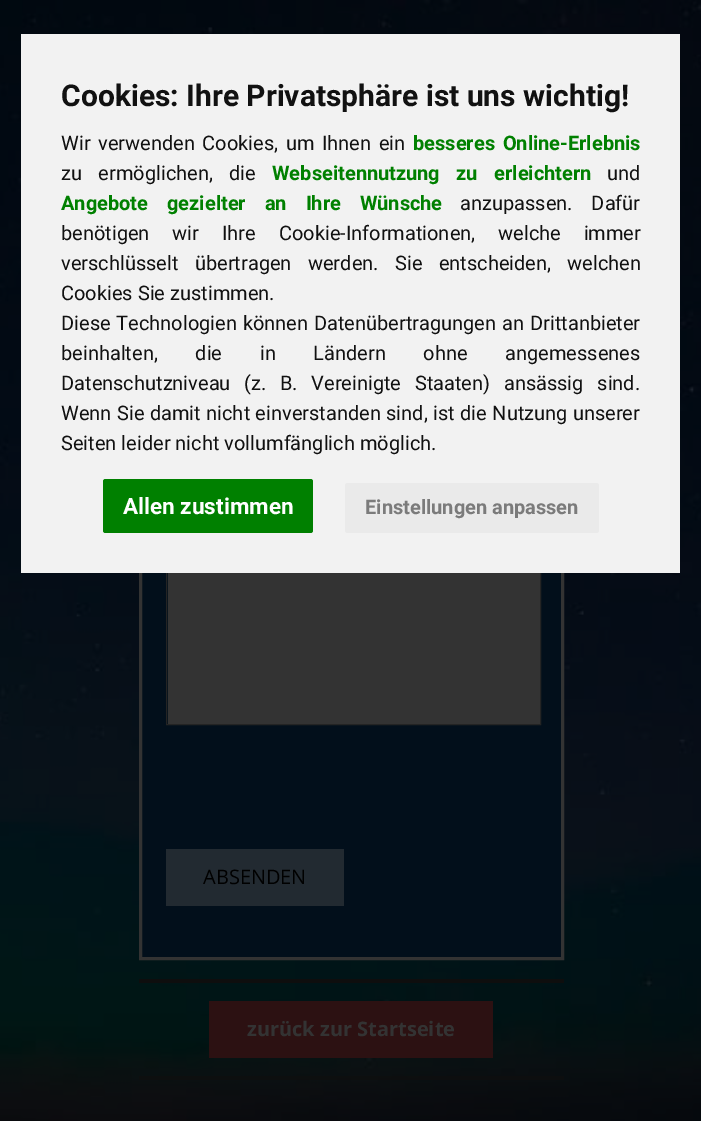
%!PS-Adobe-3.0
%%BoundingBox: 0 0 701 1121
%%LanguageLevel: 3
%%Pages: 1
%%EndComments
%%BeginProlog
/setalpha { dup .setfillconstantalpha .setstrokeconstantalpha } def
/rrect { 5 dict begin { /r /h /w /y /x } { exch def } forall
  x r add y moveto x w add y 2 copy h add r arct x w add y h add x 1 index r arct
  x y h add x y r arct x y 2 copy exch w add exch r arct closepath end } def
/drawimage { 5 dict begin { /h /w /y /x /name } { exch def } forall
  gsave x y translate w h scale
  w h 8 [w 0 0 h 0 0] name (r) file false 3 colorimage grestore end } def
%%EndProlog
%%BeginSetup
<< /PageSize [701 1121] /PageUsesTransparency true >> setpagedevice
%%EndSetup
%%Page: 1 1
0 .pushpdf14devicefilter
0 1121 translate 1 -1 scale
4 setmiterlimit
1 setgray
0 0 701 1121 rectfill
(images/1.raw) 0 0 701 1121 drawimage
0.008 0.059 0.106 setrgbcolor
142 573 419 384 rectfill
0.2 setgray
3 setlinewidth
140.5 175.5 422 783 rectstroke
168 573 372 151 rectfill
0.141 setgray
1 setlinewidth
166.5 570.5 374 154 rectstroke
0.949 setgray
21 34 659 539 rectfill
0 0.502 0 setrgbcolor
103 479 210 54 2.5 rrect fill
0.918 setgray
345 483 254 50 2.5 rrect fill
0.133 0.165 0.192 setrgbcolor
166 849 178 57 rectfill
0.055 setgray
139 979 425 4 rectfill
0.173 0.067 0.071 setrgbcolor
209 1001 284 57 rectfill
0.75 setalpha
0.055 setgray
139 1076 425 4 rectfill
/Roboto-Bold [30 0 0 -30 0 0] selectfont
1 setalpha
0.067 setgray
61 106 moveto (Cookies: Ihre Privatsphäre ist uns wichtig!) show
/Roboto-Regular [20 0 0 -20 0 0] selectfont
61 150 moveto 2.75 0 32 (Wir verwenden Cookies, um Ihnen ein) widthshow
/Roboto-Bold [20 0 0 -20 0 0] selectfont
0 0.502 0 setrgbcolor
413 150 moveto 2.75 0 32 (besseres Online-Erlebnis) widthshow
/Roboto-Regular [20 0 0 -20 0 0] selectfont
0.067 setgray
61 180 moveto 11.5 0 32 (zu ermöglichen, die) widthshow
/Roboto-Bold [20 0 0 -20 0 0] selectfont
0 0.502 0 setrgbcolor
272 180 moveto 11.5 0 32 (Webseitennutzung zu erleichtern) widthshow
/Roboto-Regular [20 0 0 -20 0 0] selectfont
0.067 setgray
607 180 moveto (und) show
/Roboto-Bold [20 0 0 -20 0 0] selectfont
0 0.502 0 setrgbcolor
61 210 moveto 14 0 32 (Angebote gezielter an Ihre Wünsche) widthshow
/Roboto-Regular [20 0 0 -20 0 0] selectfont
0.067 setgray
460 210 moveto 14 0 32 (anzupassen. Dafür) widthshow
61 240 moveto 18 0 32 (benötigen wir Ihre Cookie-Informationen, welche immer) widthshow
61 270 moveto 11.5 0 32 (verschlüsselt übertragen werden. Sie entscheiden, welchen) widthshow
61 300 moveto (Cookies Sie zustimmen.) show
61 330 moveto 1 0 32 (Diese Technologien können Datenübertragungen an Drittanbieter) widthshow
61 360 moveto 32.75 0 32 (beinhalten, die in Ländern ohne angemessenes) widthshow
61 390 moveto 8.75 0 32 (Datenschutzniveau \(z. B. Vereinigte Staaten\) ansässig sind.) widthshow
61 420 moveto 0.5 0 32 (Wenn Sie damit nicht einverstanden sind, ist die Nutzung unserer) widthshow
61 450 moveto (Seiten leider nicht vollumfänglich möglich.) show
/Roboto-Bold [22.5 0 0 -22.5 0 0] selectfont
1 setgray
123 514 moveto (Allen zustimmen) show
/Roboto-Bold [20 0 0 -20 0 0] selectfont
0.482 setgray
365 514 moveto (Einstellungen anpassen) show
/OpenSans-Regular [20 0 0 -20 0 0] selectfont
0 setgray
203 884 moveto (ABSENDEN) show
/OpenSans-Bold [20 0 0 -20 0 0] selectfont
0.2 setgray
247 1036 moveto (zurück zur Startseite) show
.poppdf14devicefilter showpage
%%EOF
